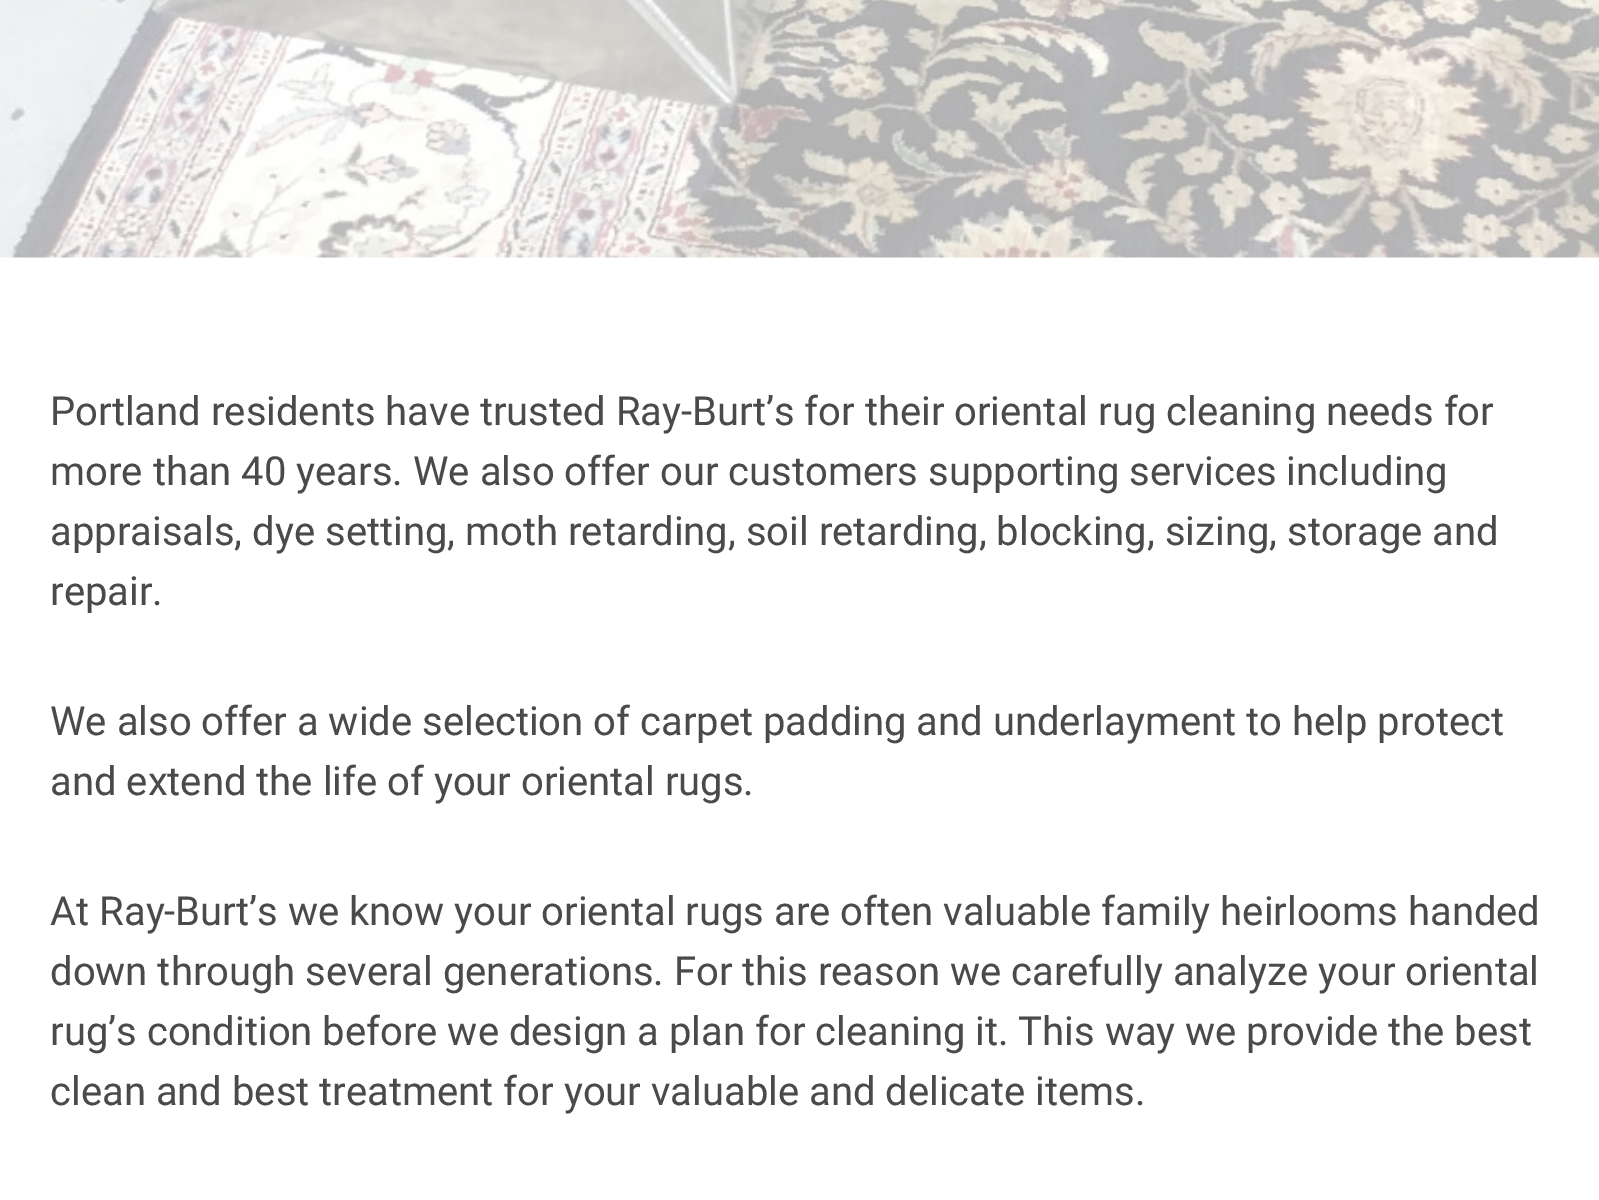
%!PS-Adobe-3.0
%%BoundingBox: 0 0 1599 1200
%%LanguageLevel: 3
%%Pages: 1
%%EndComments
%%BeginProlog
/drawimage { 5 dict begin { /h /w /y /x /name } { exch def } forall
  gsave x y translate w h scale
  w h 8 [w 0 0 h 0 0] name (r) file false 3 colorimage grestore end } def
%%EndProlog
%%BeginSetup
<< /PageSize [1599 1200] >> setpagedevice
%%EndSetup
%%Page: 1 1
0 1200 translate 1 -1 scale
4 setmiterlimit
1 setgray
0 0 1599 1200 rectfill
(images/1.raw) 0 0 1599 258 drawimage
/Roboto-Regular [40 0 0 -40 0 0] selectfont
0.29 setgray
50 425 moveto (Portland residents have trusted Ray-Burt’s for their oriental rug cleaning needs for) show
50 485 moveto (more than 40 years. We also offer our customers supporting services including) show
50 545 moveto (appraisals, dye setting, moth retarding, soil retarding, blocking, sizing, storage and) show
50 605 moveto (repair.) show
50 735 moveto (We also offer a wide selection of carpet padding and underlayment to help protect) show
50 795 moveto (and extend the life of your oriental rugs.) show
50 925 moveto (At Ray-Burt’s we know your oriental rugs are often valuable family heirlooms handed) show
50 985 moveto (down through several generations. For this reason we carefully analyze your oriental) show
50 1045 moveto (rug’s condition before we design a plan for cleaning it. This way we provide the best) show
50 1105 moveto (clean and best treatment for your valuable and delicate items.) show
showpage
%%EOF
